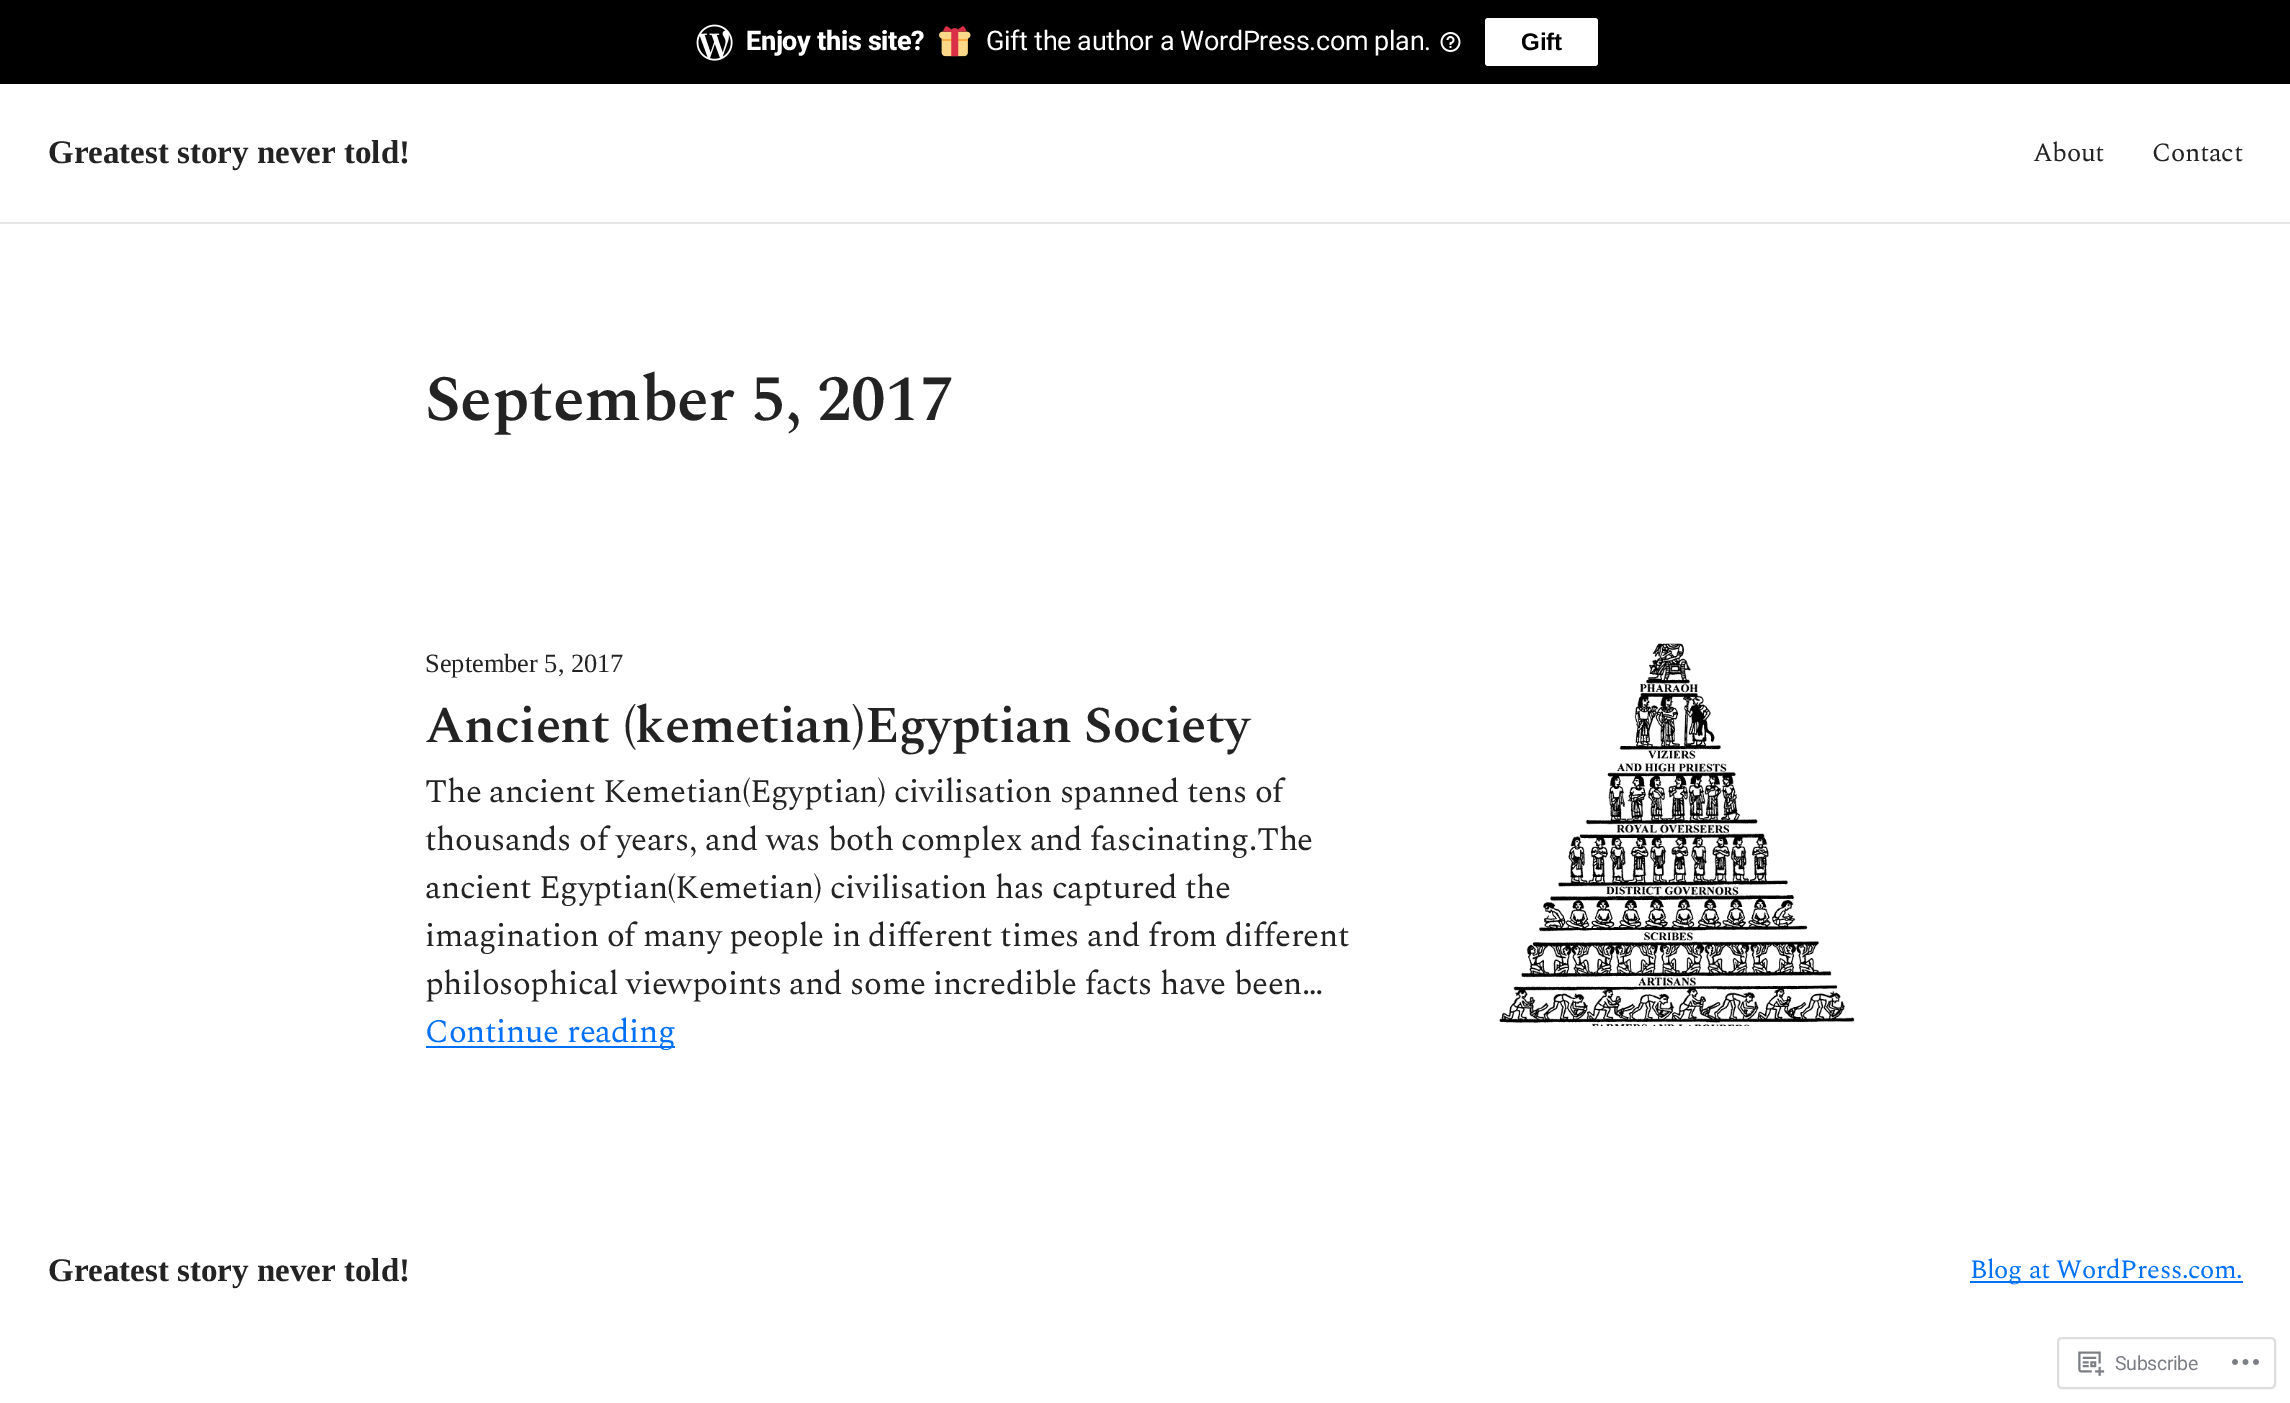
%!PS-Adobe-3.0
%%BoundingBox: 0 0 2290 1403
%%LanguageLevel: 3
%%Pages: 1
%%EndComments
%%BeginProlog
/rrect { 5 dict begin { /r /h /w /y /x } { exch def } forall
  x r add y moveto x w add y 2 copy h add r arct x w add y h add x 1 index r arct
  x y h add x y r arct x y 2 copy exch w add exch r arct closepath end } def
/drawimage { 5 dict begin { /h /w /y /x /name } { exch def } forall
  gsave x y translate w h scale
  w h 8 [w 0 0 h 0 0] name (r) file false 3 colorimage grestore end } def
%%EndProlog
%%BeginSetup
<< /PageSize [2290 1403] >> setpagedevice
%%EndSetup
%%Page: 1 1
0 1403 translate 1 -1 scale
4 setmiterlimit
1 setgray
0 0 2290 1403 rectfill
0 setgray
0 0 2290 84 rectfill
(images/1.raw) 696 24 37 37 drawimage
(images/2.raw) 939 26 32 31 drawimage
(images/3.raw) 1440 32 21 20 drawimage
1 setgray
1485 18 113 48 3 rrect fill
0.898 setgray
0 222 2290 2 rectfill
0 0.439 0.965 setrgbcolor
426 1046 249 2 rectfill
(images/4.raw) 1499 643 356 383 drawimage
1970 1281 273 2 rectfill
0.867 0.867 0.875 setrgbcolor
2 setlinewidth
2058 1338 217 50 4 rrect stroke
(images/5.raw) 2078 1351 27 25 drawimage
(images/6.raw) 2232 1359 27 6 drawimage
/Roboto-ExtraBold [27 0 0 -27 0 0] selectfont
1 setgray
746 50 moveto -0.35 0 (Enjoy this site?) ashow
/Roboto-Regular [27 0 0 -27 0 0] selectfont
986 50 moveto -0.35 0 (Gift the author a WordPress.com plan.) ashow
/LiberationSans-Bold [24 0 0 -24 0 0] selectfont
0 setgray
1521 50 moveto (Gift) show
/LiberationSerif-Bold [33 0 0 -33 0 0] selectfont
0.137 setgray
48 163 moveto (Greatest story never told!) show
/Spectral-Regular [26.4 0 0 -26.4 0 0] selectfont
2033 161 moveto -0.35 0 (About) ashow
2152 161 moveto -0.35 0 (Contact) ashow
/Spectral-SemiBold [64.5 0 0 -64.5 0 0] selectfont
425 420 moveto -0.35 0 (September 5, 2017) ashow
/LiberationSerif-Regular [26.4 0 0 -26.4 0 0] selectfont
425 672 moveto (September 5, 2017) show
/Spectral-SemiBold [51.5 0 0 -51.5 0 0] selectfont
425 742 moveto -0.35 0 (Ancient \(kemetian\)Egyptian Society) ashow
/Spectral-Regular [33 0 0 -33 0 0] selectfont
425 802 moveto -0.35 0 (The ancient Kemetian\(Egyptian\) civilisation spanned tens of) ashow
425 850 moveto -0.35 0 (thousands of years, and was both complex and fascinating.The) ashow
425 898 moveto -0.35 0 (ancient Egyptian\(Kemetian\) civilisation has captured the) ashow
425 946 moveto -0.35 0 (imagination of many people in different times and from different) ashow
425 994 moveto -0.35 0 (philosophical viewpoints and some incredible facts have been…) ashow
0 0.439 0.965 setrgbcolor
425 1042 moveto -0.35 0 (Continue reading) ashow
/LiberationSerif-Bold [33 0 0 -33 0 0] selectfont
0.137 setgray
48 1281 moveto (Greatest story never told!) show
/Spectral-Regular [26.4 0 0 -26.4 0 0] selectfont
0 0.439 0.965 setrgbcolor
1970 1278 moveto -0.35 0 (Blog at WordPress.com.) ashow
/Roboto-Regular [19.5 0 0 -19.5 0 0] selectfont
0.482 0.498 0.522 setrgbcolor
2115 1370 moveto -0.35 0 (Subscribe) ashow
showpage
%%EOF
